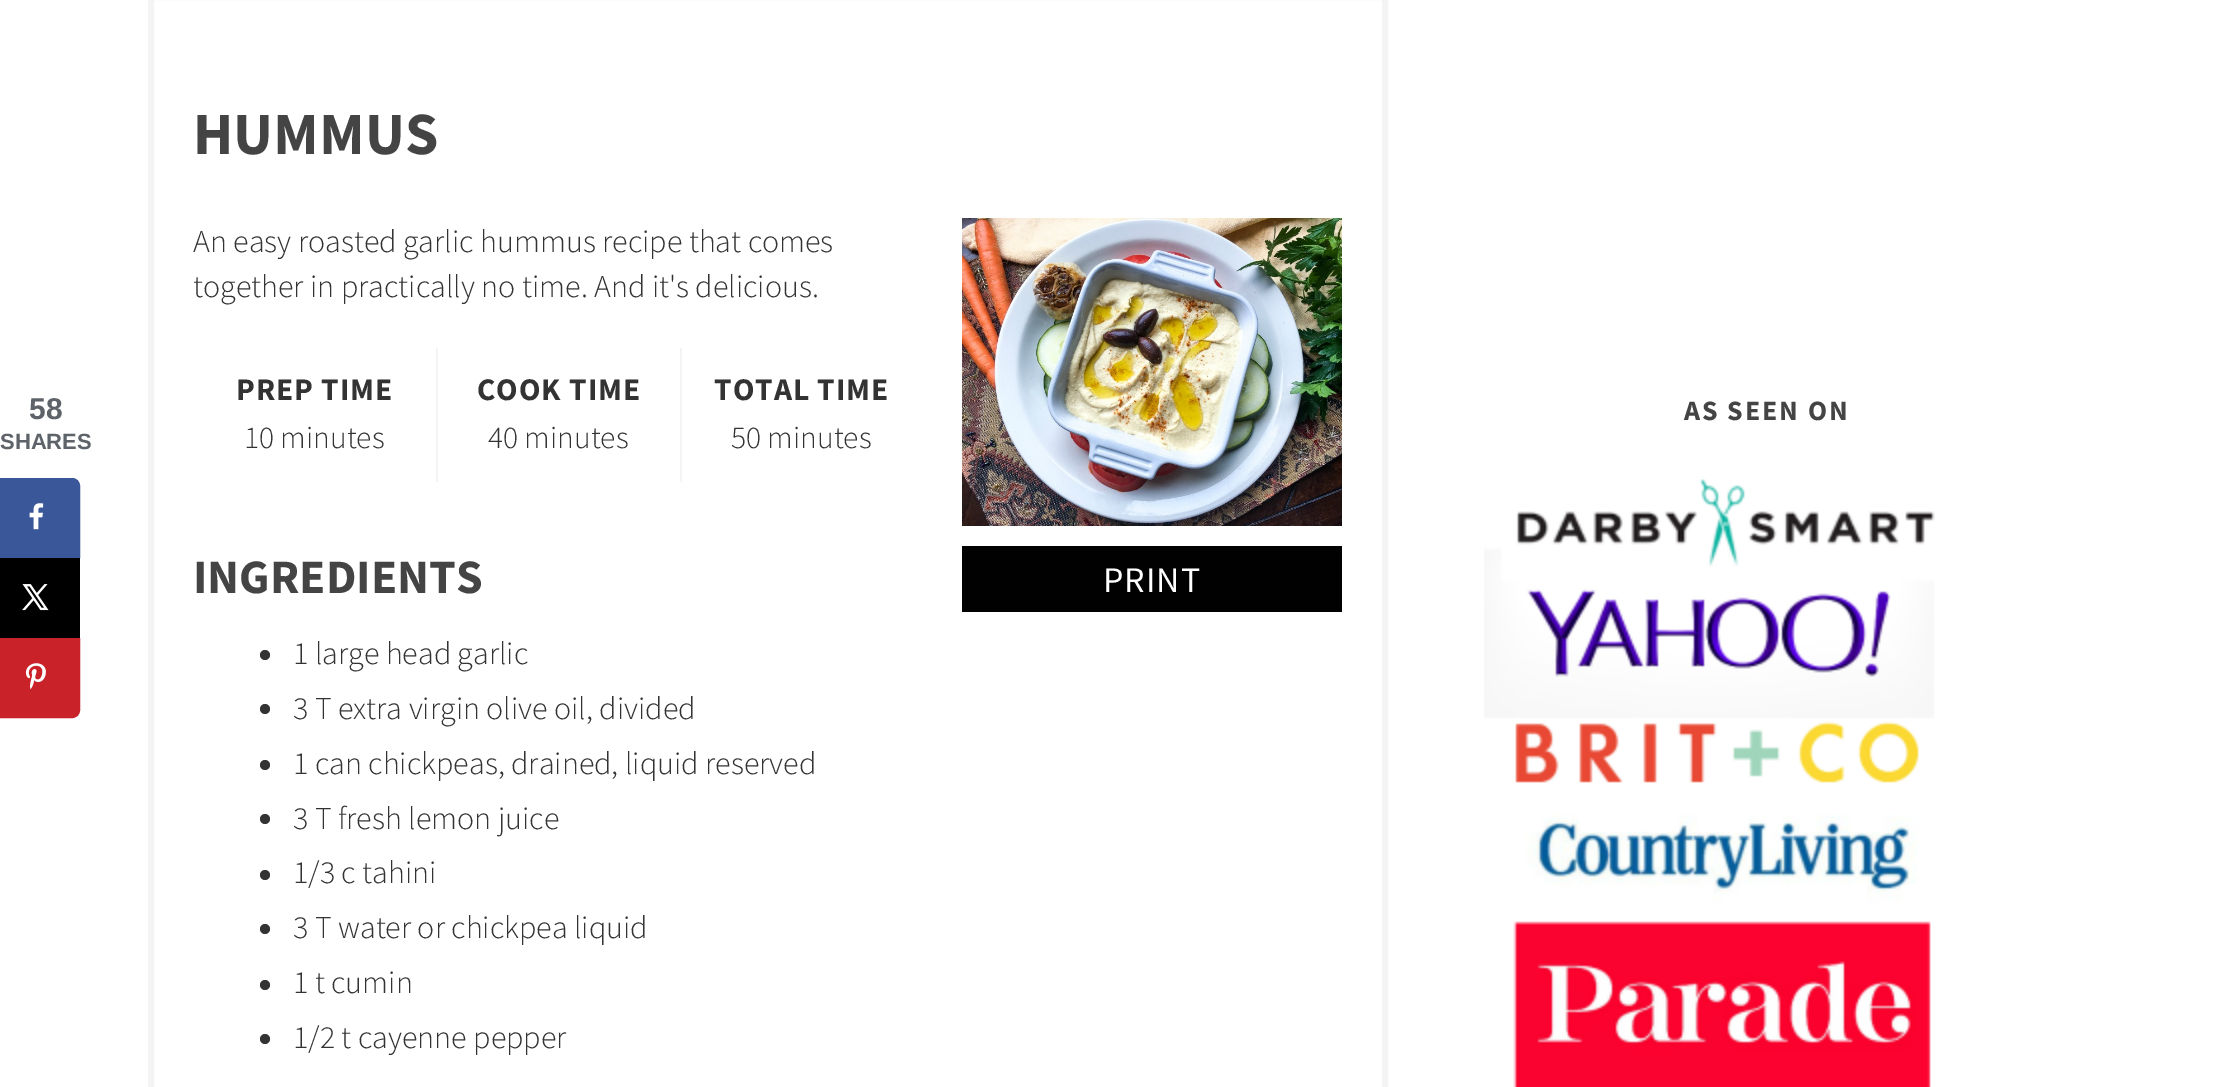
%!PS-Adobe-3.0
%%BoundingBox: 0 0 2214 1087
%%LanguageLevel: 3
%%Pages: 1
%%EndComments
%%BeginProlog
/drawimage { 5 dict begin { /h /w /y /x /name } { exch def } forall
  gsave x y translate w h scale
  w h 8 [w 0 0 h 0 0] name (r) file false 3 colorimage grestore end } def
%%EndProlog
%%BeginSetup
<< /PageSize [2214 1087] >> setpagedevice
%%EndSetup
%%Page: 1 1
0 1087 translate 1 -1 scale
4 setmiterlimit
1 setgray
0 0 2214 1087 rectfill
0.227 0.341 0.604 setrgbcolor
newpath 2 480 moveto 72 480 lineto 75.5 480 78 482.5 78 486 curveto 78 556 lineto 2 556 lineto closepath gsave fill grestore
4 setlinewidth
stroke
(images/1.raw) 29 503 15 27 drawimage
0 setgray
0 558 80 80 rectfill
(images/2.raw) 22 584 27 27 drawimage
0.788 0.133 0.157 setrgbcolor
newpath 2 640 moveto 78 640 lineto 78 710 lineto 78 713.5 75.5 716 72 716 curveto 2 716 lineto closepath gsave fill grestore
stroke
(images/3.raw) 25 663 21 27 drawimage
0.957 setgray
6 setlinewidth
151 -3 1234 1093 rectstroke
(images/4.raw) 962 218 380 308 drawimage
0.004 setgray
962 546 380 66 rectfill
0.957 setgray
436 348 2 134 rectfill
680 348 2 134 rectfill
0.2 setgray
newpath 265 655 5 0 360 arc closepath fill
newpath 265 709 5 0 360 arc closepath fill
newpath 265 765 5 0 360 arc closepath fill
newpath 265 819 5 0 360 arc closepath fill
newpath 265 875 5 0 360 arc closepath fill
newpath 265 929 5 0 360 arc closepath fill
newpath 265 985 5 0 360 arc closepath fill
newpath 265 1039 5 0 360 arc closepath fill
(images/5.raw) 1484 479 451 608 drawimage
/LiberationSans-Bold [30 0 0 -30 0 0] selectfont
0.365 0.388 0.408 setrgbcolor
29 419 moveto (58) show
/LiberationSans-Bold [22 0 0 -22 0 0] selectfont
0 449 moveto (SHARES) show
/SourceSansPro-Bold [60 0 0 -60 0 0] selectfont
0.267 setgray
193 154 moveto (HUMMUS) show
/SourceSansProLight-Light [32 0 0 -32 0 0] selectfont
0.2 setgray
193 252 moveto (An easy roasted garlic hummus recipe that comes) show
193 297 moveto (together in practically no time. And it's delicious.) show
/SourceSansPro-Regular [36 0 0 -36 0 0] selectfont
1 setgray
1103 592 moveto 1 0 (PRINT) ashow
/SourceSansPro-Bold [31.5 0 0 -31.5 0 0] selectfont
0.2 setgray
236 400 moveto 1 0 (PREP TIME) ashow
/SourceSansProLight-Light [31.5 0 0 -31.5 0 0] selectfont
244 448 moveto (10 minutes) show
/SourceSansPro-Bold [31.5 0 0 -31.5 0 0] selectfont
477 400 moveto 1 0 (COOK TIME) ashow
/SourceSansProLight-Light [31.5 0 0 -31.5 0 0] selectfont
488 448 moveto (40 minutes) show
/SourceSansPro-Bold [31.5 0 0 -31.5 0 0] selectfont
714 400 moveto 1 0 (TOTAL TIME) ashow
/SourceSansProLight-Light [31.5 0 0 -31.5 0 0] selectfont
731 448 moveto (50 minutes) show
/SourceSansPro-Bold [48 0 0 -48 0 0] selectfont
0.267 setgray
193 593 moveto (INGREDIENTS) show
/SourceSansProLight-Light [32 0 0 -32 0 0] selectfont
0.2 setgray
293 664 moveto (1 large head garlic) show
293 719 moveto (3 T extra virgin olive oil, divided) show
293 774 moveto (1 can chickpeas, drained, liquid reserved) show
293 829 moveto (3 T fresh lemon juice) show
293 883 moveto (1/3 c tahini) show
293 938 moveto (3 T water or chickpea liquid) show
293 993 moveto (1 t cumin) show
293 1048 moveto (1/2 t cayenne pepper) show
/SourceSansPro-Bold [28 0 0 -28 0 0] selectfont
0.267 setgray
1684 420 moveto 2 0 (AS SEEN ON) ashow
showpage
%%EOF
